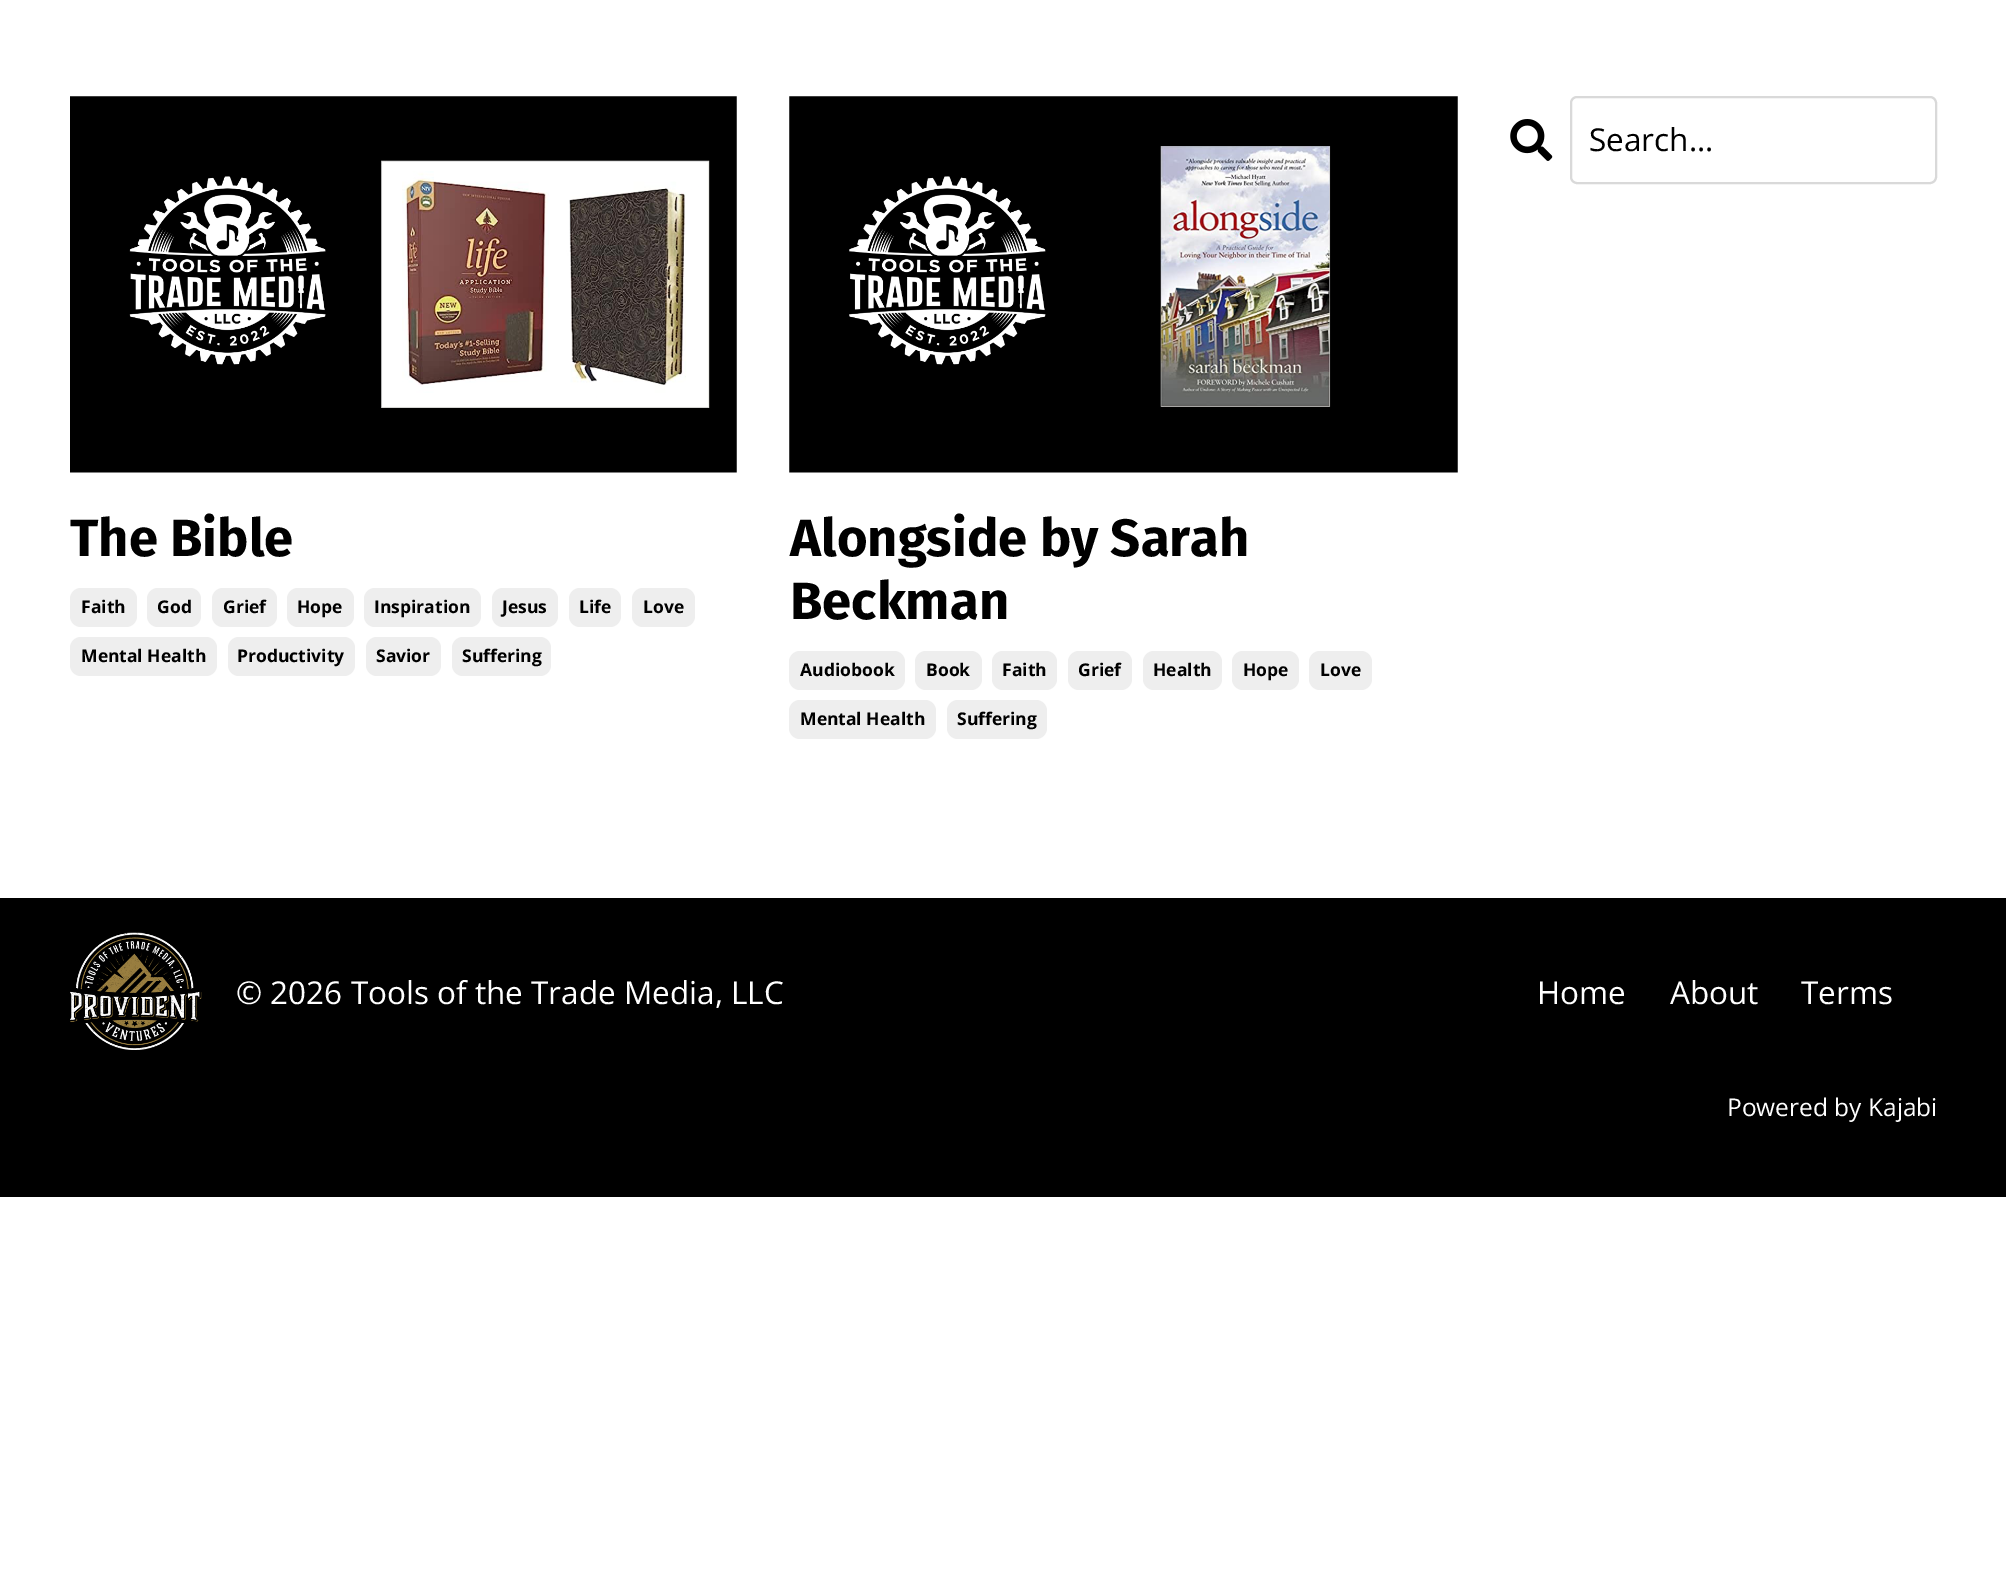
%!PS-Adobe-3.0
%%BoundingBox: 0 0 2006 1586
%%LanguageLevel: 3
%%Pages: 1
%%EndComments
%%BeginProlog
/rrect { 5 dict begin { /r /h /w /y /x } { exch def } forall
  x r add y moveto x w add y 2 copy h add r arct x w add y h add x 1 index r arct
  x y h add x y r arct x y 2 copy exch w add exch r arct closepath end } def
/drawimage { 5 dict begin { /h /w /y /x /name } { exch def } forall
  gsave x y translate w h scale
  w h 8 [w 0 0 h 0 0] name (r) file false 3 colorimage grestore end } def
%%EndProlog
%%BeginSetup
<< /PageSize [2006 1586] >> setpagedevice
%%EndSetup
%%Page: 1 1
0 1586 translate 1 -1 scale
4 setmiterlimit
1 setgray
0 0 2006 1586 rectfill
(images/1.raw) 1510 119 43 42 drawimage
0.851 setgray
2 setlinewidth
1571 97 365 86 6 rrect stroke
(images/2.raw) 70 96 667 377 drawimage
0.933 setgray
70 588 67 39 11 rrect fill
147 588 54 39 11 rrect fill
212 588 65 39 11 rrect fill
287 588 67 39 11 rrect fill
364 588 117 39 11 rrect fill
492 588 66 39 11 rrect fill
569 588 52 39 11 rrect fill
632 588 63 39 11 rrect fill
70 637 147 39 11 rrect fill
228 637 127 39 11 rrect fill
366 637 75 39 11 rrect fill
452 637 99 39 11 rrect fill
(images/3.raw) 789 96 669 377 drawimage
789 651 116 39 11 rrect fill
915 651 67 39 11 rrect fill
992 651 65 39 11 rrect fill
1068 651 64 39 11 rrect fill
1143 651 79 39 11 rrect fill
1232 651 67 39 11 rrect fill
1309 651 63 39 11 rrect fill
789 700 147 39 11 rrect fill
947 700 100 39 11 rrect fill
0 setgray
0 898 2006 299 rectfill
(images/4.raw) 70 932 132 118 drawimage
/OpenSans-Regular [31.5 0 0 -31.5 0 0] selectfont
1589 151 moveto (Search...) show
/FiraSans-Bold [52.5 0 0 -52.5 0 0] selectfont
70 556 moveto (The Bible) show
/OpenSans-Bold [17.5 0 0 -17.5 0 0] selectfont
81 613 moveto (Faith) show
157 613 moveto (God) show
223 613 moveto (Grief) show
297 613 moveto (Hope) show
374 613 moveto (Inspiration) show
502 613 moveto (Jesus) show
579 613 moveto (Life) show
643 613 moveto (Love) show
81 662 moveto (Mental Health) show
237 662 moveto (Productivity) show
376 662 moveto (Savior) show
462 662 moveto (Suffering) show
/FiraSans-Bold [52.5 0 0 -52.5 0 0] selectfont
790 556 moveto (Alongside by Sarah) show
790 619 moveto (Beckman) show
/OpenSans-Bold [17.5 0 0 -17.5 0 0] selectfont
800 676 moveto (Audiobook) show
926 676 moveto (Book) show
1002 676 moveto (Faith) show
1078 676 moveto (Grief) show
1153 676 moveto (Health) show
1243 676 moveto (Hope) show
1320 676 moveto (Love) show
800 725 moveto (Mental Health) show
957 725 moveto (Suffering) show
/OpenSans-Regular [31.5 0 0 -31.5 0 0] selectfont
1 setgray
236 1004 moveto (© 2026 Tools of the Trade Media, LLC) show
1537 1004 moveto (Home) show
1670 1004 moveto (About) show
1801 1004 moveto (Terms) show
/OpenSans-Regular [24.5 0 0 -24.5 0 0] selectfont
1727 1116 moveto (Powered by Kajabi) show
showpage
%%EOF
